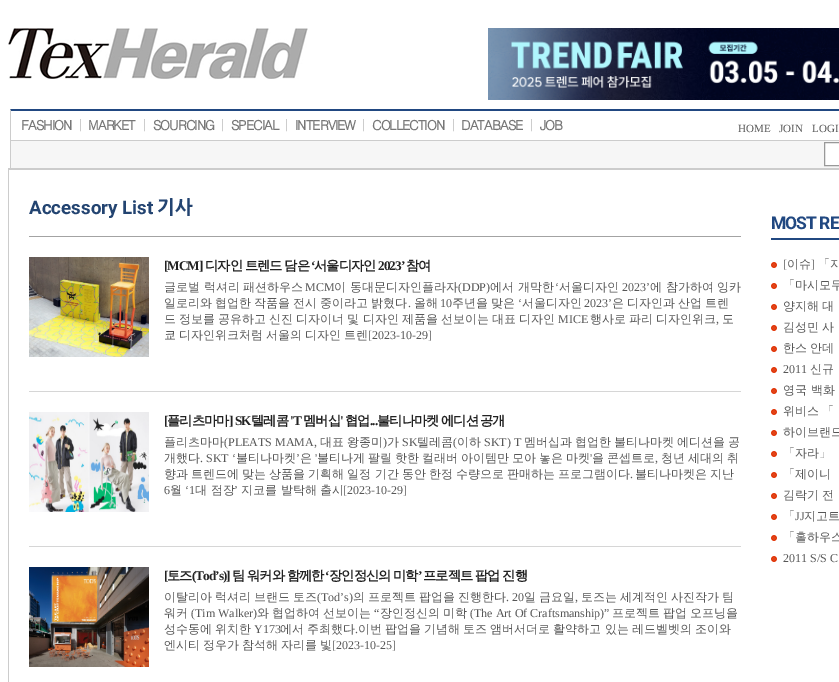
%!PS-Adobe-3.0
%%BoundingBox: 0 0 839 682
%%LanguageLevel: 3
%%Pages: 1
%%EndComments
%%BeginProlog
/drawimage { 5 dict begin { /h /w /y /x /name } { exch def } forall
  gsave x y translate w h scale
  w h 8 [w 0 0 h 0 0] name (r) file false 3 colorimage grestore end } def
%%EndProlog
%%BeginSetup
<< /PageSize [839 682] >> setpagedevice
%%EndSetup
%%Page: 1 1
0 682 translate 1 -1 scale
4 setmiterlimit
1 setgray
0 0 839 682 rectfill
(images/1.raw) 8 28 300 51 drawimage
(images/2.raw) 488 28 351 72 drawimage
0.129 0.282 0.506 setrgbcolor
newpath 10 109 moveto 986 109 lineto 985 111 lineto 11 111 lineto closepath fill
0.8 setgray
10 140 829 1 rectfill
newpath 10 141 moveto 10 109 lineto 11 111 lineto 11 140 lineto closepath fill
0.965 setgray
11 141 828 27 rectfill
0.8 setgray
10 141 1 27 rectfill
1 setgray
newpath 824.5 142.5 moveto 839.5 142.5 lineto 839.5 165.5 lineto 824.5 165.5 lineto closepath gsave fill grestore
0.6 setgray
stroke
0.8 setgray
8 168 831 2 rectfill
8 168 1 514 rectfill
0.639 setgray
29 236 712 1 rectfill
0.839 setgray
29 391 712 1 rectfill
(images/3.raw) 29 257 120 100 drawimage
29 546 712 1 rectfill
(images/4.raw) 29 412 120 100 drawimage
(images/5.raw) 29 567 120 100 drawimage
0.129 0.282 0.506 setrgbcolor
771 238 68 2 rectfill
(images/6.raw) 771 262 6 6 drawimage
(images/6.raw) 771 283 6 6 drawimage
(images/6.raw) 771 304 6 6 drawimage
(images/6.raw) 771 325 6 6 drawimage
(images/6.raw) 771 346 6 6 drawimage
(images/6.raw) 771 367 6 6 drawimage
(images/6.raw) 771 388 6 6 drawimage
(images/6.raw) 771 409 6 6 drawimage
(images/6.raw) 771 430 6 6 drawimage
(images/6.raw) 771 451 6 6 drawimage
(images/6.raw) 771 472 6 6 drawimage
(images/6.raw) 771 493 6 6 drawimage
(images/6.raw) 771 514 6 6 drawimage
(images/6.raw) 771 535 6 6 drawimage
(images/6.raw) 771 556 6 6 drawimage
/Dotum-Bold [13.25 0 0 -13.25 0 0] selectfont
0.467 setgray
21 130 moveto -1 0 (FASHION) ashow
/Dotum-Regular [13.25 0 0 -13.25 0 0] selectfont
0.733 setgray
77 130 moveto (|) show
/Dotum-Bold [13.25 0 0 -13.25 0 0] selectfont
0.467 setgray
88 130 moveto -1 0 (MARKET) ashow
/Dotum-Regular [13.25 0 0 -13.25 0 0] selectfont
0.733 setgray
141 130 moveto (|) show
/Dotum-Bold [13.25 0 0 -13.25 0 0] selectfont
0.467 setgray
153 130 moveto -1 0 (SOURCING) ashow
/Dotum-Regular [13.25 0 0 -13.25 0 0] selectfont
0.733 setgray
219 130 moveto (|) show
/Dotum-Bold [13.25 0 0 -13.25 0 0] selectfont
0.467 setgray
231 130 moveto -1 0 (SPECIAL) ashow
/Dotum-Regular [13.25 0 0 -13.25 0 0] selectfont
0.733 setgray
283 130 moveto (|) show
/Dotum-Bold [13.25 0 0 -13.25 0 0] selectfont
0.467 setgray
295 130 moveto -1 0 (INTERVIEW) ashow
/Dotum-Regular [13.25 0 0 -13.25 0 0] selectfont
0.733 setgray
360 130 moveto (|) show
/Dotum-Bold [13.25 0 0 -13.25 0 0] selectfont
0.467 setgray
372 130 moveto -1 0 (COLLECTION) ashow
/Dotum-Regular [13.25 0 0 -13.25 0 0] selectfont
0.733 setgray
450 130 moveto (|) show
/Dotum-Bold [13.25 0 0 -13.25 0 0] selectfont
0.467 setgray
461 130 moveto -1 0 (DATABASE) ashow
/Dotum-Regular [13.25 0 0 -13.25 0 0] selectfont
0.733 setgray
528 130 moveto (|) show
/Dotum-Bold [13.25 0 0 -13.25 0 0] selectfont
0.467 setgray
540 130 moveto -1 0 (JOB) ashow
/LiberationSerif-Regular [11 0 0 -11 0 0] selectfont
0.341 setgray
738 132 moveto (HOME) show
779 132 moveto (JOIN) show
812 132 moveto (LOGI) show
/Roboto-Bold [18.75 0 0 -18.75 0 0] selectfont
0.137 0.267 0.443 setrgbcolor
29 214 moveto (Accessory List) show
/NanumGothic-ExtraBold [18.75 0 0 -18.75 0 0] selectfont
157 214 moveto (기사) show
/LiberationSerif-Bold [13.25 0 0 -13.25 0 0] selectfont
0.133 setgray
164 270 moveto -1 0 ([MCM]) ashow
/WenQuanYiZenHei-Bold [13.25 0 0 -13.25 0 0] selectfont
205 270 moveto -1 0 (디자인 트렌드 담은) ashow
/LiberationSerif-Bold [13.25 0 0 -13.25 0 0] selectfont
311 270 moveto -1 0 (‘) ashow
/WenQuanYiZenHei-Bold [13.25 0 0 -13.25 0 0] selectfont
314 270 moveto -1 0 (서울디자인) ashow
/LiberationSerif-Bold [13.25 0 0 -13.25 0 0] selectfont
378 270 moveto -1 0 (2023’) ashow
/WenQuanYiZenHei-Bold [13.25 0 0 -13.25 0 0] selectfont
406 270 moveto -1 0 (참여) ashow
/WenQuanYiZenHei-Medium [12 0 0 -12 0 0] selectfont
0.341 setgray
164 291 moveto (글로벌 럭셔리 패션하우스) show
/LiberationSerif-Regular [12 0 0 -12 0 0] selectfont
305 291 moveto (MCM) show
/WenQuanYiZenHei-Medium [12 0 0 -12 0 0] selectfont
334 291 moveto (이 동대문디자인플라자) show
/LiberationSerif-Regular [12 0 0 -12 0 0] selectfont
458 291 moveto (\(DDP\)) show
/WenQuanYiZenHei-Medium [12 0 0 -12 0 0] selectfont
490 291 moveto (에서 개막한) show
/LiberationSerif-Regular [12 0 0 -12 0 0] selectfont
555 291 moveto (‘) show
/WenQuanYiZenHei-Medium [12 0 0 -12 0 0] selectfont
559 291 moveto (서울디자인) show
/LiberationSerif-Regular [12 0 0 -12 0 0] selectfont
622 291 moveto (2023’) show
/WenQuanYiZenHei-Medium [12 0 0 -12 0 0] selectfont
650 291 moveto (에 참가하여 잉카) show
164 307 moveto -0.5 0 32 (일로리와 협업한 작품을 전시 중이라고 밝혔다) widthshow
/LiberationSerif-Regular [12 0 0 -12 0 0] selectfont
408 307 moveto (.) show
/WenQuanYiZenHei-Medium [12 0 0 -12 0 0] selectfont
414 307 moveto (올해) show
/LiberationSerif-Regular [12 0 0 -12 0 0] selectfont
440 307 moveto (10) show
/WenQuanYiZenHei-Medium [12 0 0 -12 0 0] selectfont
452 307 moveto -0.5 0 32 (주년을 맞은) widthshow
/LiberationSerif-Regular [12 0 0 -12 0 0] selectfont
518 307 moveto (‘) show
/WenQuanYiZenHei-Medium [12 0 0 -12 0 0] selectfont
522 307 moveto (서울디자인) show
/LiberationSerif-Regular [12 0 0 -12 0 0] selectfont
584 307 moveto (2023’) show
/WenQuanYiZenHei-Medium [12 0 0 -12 0 0] selectfont
612 307 moveto -0.5 0 32 (은 디자인과 산업 트렌) widthshow
164 323 moveto -0.5 0 32 (드 정보를 공유하고 신진 디자이너 및 디자인 제품을 선보이는 대표 디자인) widthshow
/LiberationSerif-Regular [12 0 0 -12 0 0] selectfont
558 323 moveto (MICE) show
/WenQuanYiZenHei-Medium [12 0 0 -12 0 0] selectfont
590 323 moveto -0.5 0 32 (행사로 파리 디자인위크) widthshow
/LiberationSerif-Regular [12 0 0 -12 0 0] selectfont
716 323 moveto (,) show
/WenQuanYiZenHei-Medium [12 0 0 -12 0 0] selectfont
722 323 moveto (도) show
164 339 moveto -0.5 0 32 (쿄 디자인위크처럼 서울의 디자인 트렌) widthshow
/LiberationSerif-Regular [12 0 0 -12 0 0] selectfont
368 339 moveto ([2023-10-29]) show
/LiberationSerif-Bold [13.25 0 0 -13.25 0 0] selectfont
0.133 setgray
164 425 moveto -1 0 ([) ashow
/WenQuanYiZenHei-Bold [13.25 0 0 -13.25 0 0] selectfont
167 425 moveto -1 0 (플리츠마마) ashow
/LiberationSerif-Bold [13.25 0 0 -13.25 0 0] selectfont
229 425 moveto -1 0 (] SK) ashow
/WenQuanYiZenHei-Bold [13.25 0 0 -13.25 0 0] selectfont
251 425 moveto -1 0 (텔레콤) ashow
/LiberationSerif-Bold [13.25 0 0 -13.25 0 0] selectfont
290 425 moveto -1 0 ('T) ashow
/WenQuanYiZenHei-Bold [13.25 0 0 -13.25 0 0] selectfont
303 425 moveto -1 0 (멤버십) ashow
/LiberationSerif-Bold [13.25 0 0 -13.25 0 0] selectfont
340 425 moveto -1 0 (') ashow
/WenQuanYiZenHei-Bold [13.25 0 0 -13.25 0 0] selectfont
345 425 moveto -1 0 (협업) ashow
441 425 moveto -1 0 (에디션) ashow
480 425 moveto -1 0 (공개) ashow
/LiberationSerif-Bold [13.25 0 0 -13.25 0 0] selectfont
370 425 moveto -1 0 (...) ashow
/WenQuanYiZenHei-Bold [13.25 0 0 -13.25 0 0] selectfont
377 425 moveto -1 0 (불티나마켓) ashow
/WenQuanYiZenHei-Medium [12 0 0 -12 0 0] selectfont
0.341 setgray
164 446 moveto (플리츠마마) show
/LiberationSerif-Regular [12 0 0 -12 0 0] selectfont
224 446 moveto (\(PLEATS MAMA,) show
/WenQuanYiZenHei-Medium [12 0 0 -12 0 0] selectfont
320 446 moveto (대표) show
347 446 moveto (왕종미) show
/LiberationSerif-Regular [12 0 0 -12 0 0] selectfont
383 446 moveto (\)) show
/WenQuanYiZenHei-Medium [12 0 0 -12 0 0] selectfont
387 446 moveto (가) show
/LiberationSerif-Regular [12 0 0 -12 0 0] selectfont
402 446 moveto (SK) show
/WenQuanYiZenHei-Medium [12 0 0 -12 0 0] selectfont
417 446 moveto (텔레콤) show
/LiberationSerif-Regular [12 0 0 -12 0 0] selectfont
453 446 moveto (\() show
/WenQuanYiZenHei-Medium [12 0 0 -12 0 0] selectfont
457 446 moveto (이하) show
/LiberationSerif-Regular [12 0 0 -12 0 0] selectfont
484 446 moveto (SKT\) T) show
/WenQuanYiZenHei-Medium [12 0 0 -12 0 0] selectfont
524 446 moveto (멤버십과) show
575 446 moveto (협업한) show
614 446 moveto (불티나마켓) show
677 446 moveto (에디션을) show
728 446 moveto (공) show
164 462 moveto (개했다) show
/LiberationSerif-Regular [12 0 0 -12 0 0] selectfont
200 462 moveto (. SKT ‘) show
/WenQuanYiZenHei-Medium [12 0 0 -12 0 0] selectfont
236 462 moveto (불티나마켓) show
/LiberationSerif-Regular [12 0 0 -12 0 0] selectfont
296 462 moveto (’) show
/WenQuanYiZenHei-Medium [12 0 0 -12 0 0] selectfont
300 462 moveto (은) show
/LiberationSerif-Regular [12 0 0 -12 0 0] selectfont
315 462 moveto (') show
/WenQuanYiZenHei-Medium [12 0 0 -12 0 0] selectfont
317 462 moveto (불티나게) show
368 462 moveto (팔릴) show
395 462 moveto (핫한) show
422 462 moveto (컬래버) show
461 462 moveto (아이템만) show
512 462 moveto (모아) show
539 462 moveto (놓은) show
566 462 moveto (마켓) show
/LiberationSerif-Regular [12 0 0 -12 0 0] selectfont
590 462 moveto (') show
/WenQuanYiZenHei-Medium [12 0 0 -12 0 0] selectfont
592 462 moveto (을) show
607 462 moveto (콘셉트로) show
661 462 moveto (청년) show
688 462 moveto (세대의) show
727 462 moveto (취) show
/LiberationSerif-Regular [12 0 0 -12 0 0] selectfont
655 462 moveto (,) show
/WenQuanYiZenHei-Medium [12 0 0 -12 0 0] selectfont
164 478 moveto -0.5 0 32 (향과 트렌드에 맞는 상품을 기획해 일정 기간 동안 한정 수량으로 판매하는 프로그램이다) widthshow
/LiberationSerif-Regular [12 0 0 -12 0 0] selectfont
630 478 moveto (.) show
/WenQuanYiZenHei-Medium [12 0 0 -12 0 0] selectfont
635 478 moveto -0.5 0 32 (불티나마켓은 지난) widthshow
/LiberationSerif-Regular [12 0 0 -12 0 0] selectfont
164 494 moveto (6) show
/WenQuanYiZenHei-Medium [12 0 0 -12 0 0] selectfont
170 494 moveto (월) show
/LiberationSerif-Regular [12 0 0 -12 0 0] selectfont
185 494 moveto (‘1) show
/WenQuanYiZenHei-Medium [12 0 0 -12 0 0] selectfont
195 494 moveto (대 점장) show
/LiberationSerif-Regular [12 0 0 -12 0 0] selectfont
234 494 moveto (’) show
/WenQuanYiZenHei-Medium [12 0 0 -12 0 0] selectfont
241 494 moveto (지코를 발탁해 출시) show
/LiberationSerif-Regular [12 0 0 -12 0 0] selectfont
343 494 moveto ([2023-10-29]) show
/LiberationSerif-Bold [13.25 0 0 -13.25 0 0] selectfont
0.133 setgray
164 580 moveto -1 0 ([) ashow
/WenQuanYiZenHei-Bold [13.25 0 0 -13.25 0 0] selectfont
167 580 moveto -1 0 (토즈) ashow
/LiberationSerif-Bold [13.25 0 0 -13.25 0 0] selectfont
192 580 moveto -1 0 (\(Tod’s\)]) ashow
/WenQuanYiZenHei-Bold [13.25 0 0 -13.25 0 0] selectfont
232 580 moveto -1 0 (팀 워커와 함께한) ashow
/LiberationSerif-Bold [13.25 0 0 -13.25 0 0] selectfont
325 580 moveto -1 0 (‘) ashow
/WenQuanYiZenHei-Bold [13.25 0 0 -13.25 0 0] selectfont
329 580 moveto -1 0 (장인정신의 미학) ashow
/LiberationSerif-Bold [13.25 0 0 -13.25 0 0] selectfont
418 580 moveto -1 0 (’) ashow
/WenQuanYiZenHei-Bold [13.25 0 0 -13.25 0 0] selectfont
423 580 moveto -1 0 (프로젝트 팝업 진행) ashow
/WenQuanYiZenHei-Medium [12 0 0 -12 0 0] selectfont
0.341 setgray
164 601 moveto (이탈리아) show
215 601 moveto (럭셔리) show
254 601 moveto (브랜드) show
293 601 moveto (토즈) show
/LiberationSerif-Regular [12 0 0 -12 0 0] selectfont
317 601 moveto (\(Tod’s\)) show
/WenQuanYiZenHei-Medium [12 0 0 -12 0 0] selectfont
353 601 moveto (의) show
368 601 moveto (프로젝트) show
419 601 moveto (팝업을) show
458 601 moveto (진행한다) show
/LiberationSerif-Regular [12 0 0 -12 0 0] selectfont
506 601 moveto (. 20) show
/WenQuanYiZenHei-Medium [12 0 0 -12 0 0] selectfont
524 601 moveto (일) show
539 601 moveto (금요일) show
/LiberationSerif-Regular [12 0 0 -12 0 0] selectfont
575 601 moveto (,) show
/WenQuanYiZenHei-Medium [12 0 0 -12 0 0] selectfont
581 601 moveto (토즈는) show
620 601 moveto (세계적인) show
671 601 moveto (사진작가) show
722 601 moveto (팀) show
164 617 moveto (워커) show
/LiberationSerif-Regular [12 0 0 -12 0 0] selectfont
191 617 moveto (\(Tim Walker\)) show
/WenQuanYiZenHei-Medium [12 0 0 -12 0 0] selectfont
257 617 moveto (와) show
272 617 moveto (협업하여) show
323 617 moveto (선보이는) show
/LiberationSerif-Regular [12 0 0 -12 0 0] selectfont
374 617 moveto (“) show
/WenQuanYiZenHei-Medium [12 0 0 -12 0 0] selectfont
380 617 moveto (장인정신의) show
443 617 moveto (미학) show
/LiberationSerif-Regular [12 0 0 -12 0 0] selectfont
470 617 moveto (\(The Art Of Craftsmanship\)”) show
/WenQuanYiZenHei-Medium [12 0 0 -12 0 0] selectfont
612 617 moveto (프로젝트) show
663 617 moveto (팝업) show
690 617 moveto (오프닝을) show
164 633 moveto -0.5 0 32 (성수동에 위치한) widthshow
/LiberationSerif-Regular [12 0 0 -12 0 0] selectfont
254 633 moveto (Y173) show
/WenQuanYiZenHei-Medium [12 0 0 -12 0 0] selectfont
280 633 moveto -0.5 0 32 (에서 주최했다) widthshow
/LiberationSerif-Regular [12 0 0 -12 0 0] selectfont
355 633 moveto (.) show
/WenQuanYiZenHei-Medium [12 0 0 -12 0 0] selectfont
358 633 moveto -0.5 0 32 (이번 팝업을 기념해 토즈 앰버서더로 활약하고 있는 레드벨벳의 조이와) widthshow
164 649 moveto -0.5 0 32 (엔시티 정우가 참석해 자리를 빛) widthshow
/LiberationSerif-Regular [12 0 0 -12 0 0] selectfont
332 649 moveto ([2023-10-25]) show
/Roboto-Bold [17.5 0 0 -17.5 0 0] selectfont
0.129 0.282 0.506 setrgbcolor
771 229 moveto -1 0 (MOST RE) ashow
/LiberationSerif-Regular [12 0 0 -12 0 0] selectfont
0.341 setgray
783 268 moveto ([) show
/WenQuanYiZenHei-Medium [12 0 0 -12 0 0] selectfont
787 268 moveto (이슈) show
/LiberationSerif-Regular [12 0 0 -12 0 0] selectfont
811 268 moveto (]) show
/WenQuanYiZenHei-Medium [12 0 0 -12 0 0] selectfont
818 268 moveto (「지) show
783 289 moveto (「마시모두) show
783 310 moveto -0.5 0 32 (양지해 대) widthshow
783 331 moveto -0.5 0 32 (김성민 사) widthshow
783 352 moveto -0.5 0 32 (한스 안데) widthshow
/LiberationSerif-Regular [12 0 0 -12 0 0] selectfont
783 373 moveto (2011) show
/WenQuanYiZenHei-Medium [12 0 0 -12 0 0] selectfont
810 373 moveto (신규) show
783 394 moveto (영국 백화) show
783 415 moveto -0.5 0 32 (위비스 「) widthshow
783 436 moveto (하이브랜드) show
783 457 moveto -0.5 0 32 (「자라」) widthshow
783 478 moveto -0.5 0 32 (「제이니) widthshow
783 499 moveto -0.5 0 32 (김락기 전) widthshow
783 520 moveto (「) show
/LiberationSerif-Regular [12 0 0 -12 0 0] selectfont
795 520 moveto (JJ) show
/WenQuanYiZenHei-Medium [12 0 0 -12 0 0] selectfont
804 520 moveto (지고트) show
783 541 moveto -0.5 0 32 (「홀하우스) widthshow
/LiberationSerif-Regular [12 0 0 -12 0 0] selectfont
783 562 moveto (2011 S/S C) show
showpage
%%EOF
